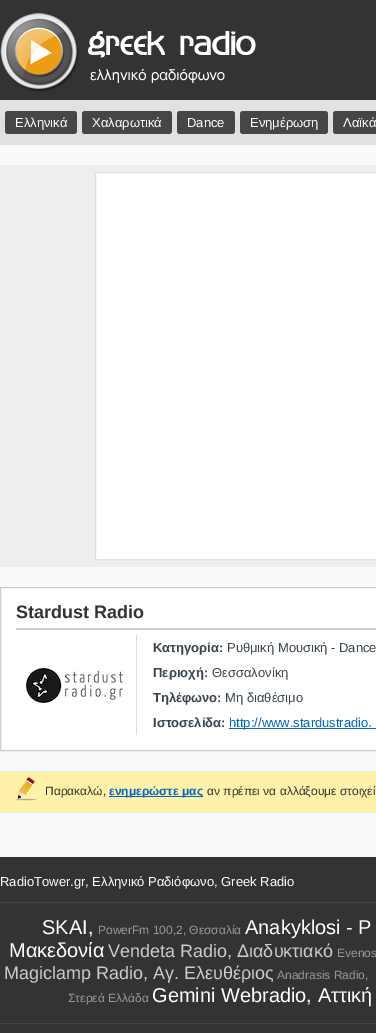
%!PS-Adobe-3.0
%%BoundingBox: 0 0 376 1033
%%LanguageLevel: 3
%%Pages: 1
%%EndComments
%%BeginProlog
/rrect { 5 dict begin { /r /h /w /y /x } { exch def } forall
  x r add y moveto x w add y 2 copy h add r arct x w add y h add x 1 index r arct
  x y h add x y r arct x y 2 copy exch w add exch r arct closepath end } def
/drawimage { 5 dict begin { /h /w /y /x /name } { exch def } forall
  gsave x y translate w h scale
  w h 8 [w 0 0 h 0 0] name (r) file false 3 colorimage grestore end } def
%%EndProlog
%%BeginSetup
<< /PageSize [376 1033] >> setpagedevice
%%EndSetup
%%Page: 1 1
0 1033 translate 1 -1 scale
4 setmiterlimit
0.98 setgray
0 0 376 1033 rectfill
0.2 setgray
0 0 376 100 rectfill
(images/1.raw) 0 13 256 79 drawimage
0.882 setgray
0 100 376 45 rectfill
0.275 setgray
5 111 72 23 3 rrect fill
82 111 90 23 3 rrect fill
177 111 58 23 3 rrect fill
240 111 88 23 3 rrect fill
333 111 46 23 3 rrect fill
0.933 setgray
0 165 376 402 rectfill
1 setgray
newpath 95.5 172.5 moveto 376.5 172.5 lineto 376.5 559.5 lineto 95.5 559.5 lineto closepath gsave fill grestore
0.882 setgray
stroke
1 setgray
newpath 0.5 587.5 moveto 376.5 587.5 lineto 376.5 750.5 lineto 0.5 750.5 lineto closepath gsave fill grestore
0.8 setgray
stroke
16 628 360 2 rectfill
0.863 setgray
136 635 1 100 rectfill
(images/2.raw) 26 668 99 35 drawimage
0 0.4 0.8 setrgbcolor
229 728 147 1 rectfill
1 0.945 0.659 setrgbcolor
0 772 376 40 rectfill
0.914 setgray
0 771 376 1 rectfill
0 812 376 1 rectfill
(images/3.raw) 15 777 22 24 drawimage
0 0.4 0.8 setrgbcolor
109 796 94 1 rectfill
0.2 setgray
0 857 376 176 rectfill
0.267 setgray
0 902 376 1 rectfill
0 1023 376 1 rectfill
/LiberationSans-Regular [13 0 0 -13 0 0] selectfont
1 setgray
15 127 moveto (Ελληνικά) show
92 127 moveto (Χαλαρωτικά) show
187 127 moveto (Dance) show
250 127 moveto (Ενημέρωση) show
343 127 moveto (Λαϊκά) show
/LiberationSans-Bold [18 0 0 -18 0 0] selectfont
0.2 setgray
16 618 moveto (Stardust Radio) show
/LiberationSans-Bold [13 0 0 -13 0 0] selectfont
0.224 0.271 0.318 setrgbcolor
153 652 moveto (Κατηγορία:) show
/LiberationSans-Regular [13 0 0 -13 0 0] selectfont
227 652 moveto (Ρυθμική Μουσική - Dance) show
/LiberationSans-Bold [13 0 0 -13 0 0] selectfont
153 677 moveto (Περιοχή:) show
/LiberationSans-Regular [13 0 0 -13 0 0] selectfont
212 677 moveto (Θεσσαλονίκη) show
/LiberationSans-Bold [13 0 0 -13 0 0] selectfont
153 702 moveto (Τηλέφωνο:) show
/LiberationSans-Regular [13 0 0 -13 0 0] selectfont
225 702 moveto (Μη διαθέσιμο) show
/LiberationSans-Bold [13 0 0 -13 0 0] selectfont
153 727 moveto (Ιστοσελίδα:) show
/LiberationSans-Regular [13 0 0 -13 0 0] selectfont
0 0.4 0.8 setrgbcolor
229 727 moveto (http://www.stardustradio.) show
/LiberationSans-Regular [12 0 0 -12 0 0] selectfont
0.2 setgray
45 795 moveto (Παρακαλώ,) show
/LiberationSans-Bold [12 0 0 -12 0 0] selectfont
0 0.4 0.8 setrgbcolor
109 795 moveto (ενημερώστε μας) show
/LiberationSans-Regular [12 0 0 -12 0 0] selectfont
0.2 setgray
207 795 moveto (αν πρέπει να αλλάξουμε στοιχεί) show
/LiberationSans-Regular [13 0 0 -13 0 0] selectfont
1 setgray
0 886 moveto (RadioTower.gr, Ελληνικό Ραδιόφωνο, Greek Radio) show
/LiberationSans-Regular [20 0 0 -20 0 0] selectfont
42 934 moveto (SKAI,) show
/LiberationSans-Regular [12 0 0 -12 0 0] selectfont
0.6 setgray
98 934 moveto (PowerFm 100,2, Θεσσαλία) show
/LiberationSans-Regular [20 0 0 -20 0 0] selectfont
1 setgray
245 934 moveto (Anakyklosi - P) show
9 957 moveto (Μακεδονία) show
/LiberationSans-Regular [18 0 0 -18 0 0] selectfont
0.8 setgray
108 957 moveto (Vendeta Radio, Διαδυκτιακό) show
/LiberationSans-Regular [12 0 0 -12 0 0] selectfont
0.6 setgray
337 957 moveto (Evenos) show
/LiberationSans-Regular [18 0 0 -18 0 0] selectfont
0.8 setgray
4 979 moveto (Magiclamp Radio, Αγ. Ελευθέριος) show
/LiberationSans-Regular [12 0 0 -12 0 0] selectfont
0.6 setgray
277 979 moveto (Anadrasis Radio,) show
68 1002 moveto (Στερεά Ελλάδα) show
/LiberationSans-Regular [20 0 0 -20 0 0] selectfont
1 setgray
152 1002 moveto (Gemini Webradio, Αττική) show
showpage
%%EOF
